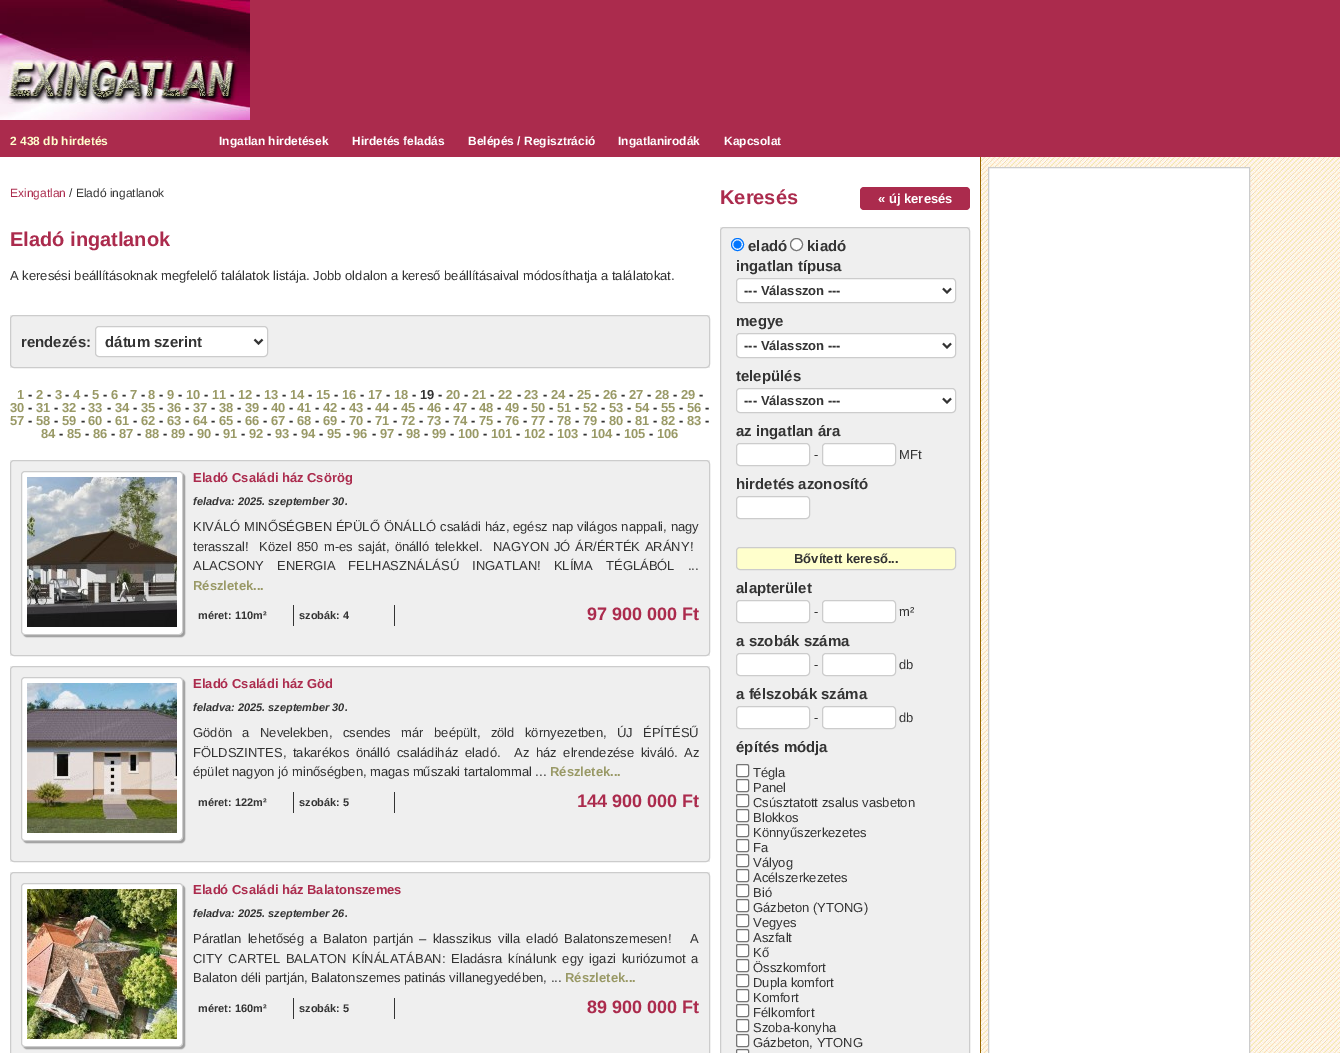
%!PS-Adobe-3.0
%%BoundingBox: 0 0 1340 1053
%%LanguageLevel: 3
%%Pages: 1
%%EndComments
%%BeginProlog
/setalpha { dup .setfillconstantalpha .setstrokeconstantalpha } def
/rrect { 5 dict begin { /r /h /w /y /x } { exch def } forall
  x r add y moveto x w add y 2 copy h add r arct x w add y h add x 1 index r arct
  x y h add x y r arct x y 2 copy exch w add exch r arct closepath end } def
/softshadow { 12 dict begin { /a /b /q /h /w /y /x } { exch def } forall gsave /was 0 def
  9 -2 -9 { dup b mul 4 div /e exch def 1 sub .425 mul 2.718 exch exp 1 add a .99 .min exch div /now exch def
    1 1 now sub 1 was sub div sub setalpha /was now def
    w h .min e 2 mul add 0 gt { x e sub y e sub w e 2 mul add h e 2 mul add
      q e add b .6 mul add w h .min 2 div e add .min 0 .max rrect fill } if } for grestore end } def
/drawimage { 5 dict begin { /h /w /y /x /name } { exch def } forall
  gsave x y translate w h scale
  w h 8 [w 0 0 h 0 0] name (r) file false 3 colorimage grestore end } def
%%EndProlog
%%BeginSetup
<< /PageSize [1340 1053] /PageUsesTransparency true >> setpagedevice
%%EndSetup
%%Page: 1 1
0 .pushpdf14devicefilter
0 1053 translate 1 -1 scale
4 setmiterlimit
0.671 0.169 0.302 setrgbcolor
0 0 1340 1053 rectfill
(images/1.raw) 0 0 250 120 drawimage
(images/2.raw) 981 157 359 896 drawimage
1 setgray
0 157 980 896 rectfill
0.6 0.4 0 setrgbcolor
980 157 1 896 rectfill
0.937 setgray
10 315 700 53 rectfill
0.8 setgray
10.5 315.5 699 52 3.5 rrect stroke
1 setgray
95.5 326.5 172 30 3.5 rrect gsave fill grestore
0.8 setgray
stroke
0.2 setgray
2 setlinewidth
newpath 254.5 339.5 moveto 258.5 343.5 lineto 262.5 339.5 lineto stroke
0.937 setgray
10 460 700 196 rectfill
0.8 setgray
1 setlinewidth
10.5 460.5 699 195 3.5 rrect stroke
0.6 setgray
23 473 162 164 4 0.5 1 softshadow
1 setgray
21.5 471.5 161 163 3.5 rrect gsave fill grestore
0.8 setgray
stroke
(images/3.raw) 27 477 150 150 drawimage
0.2 setgray
293 605 1 21 rectfill
394 605 1 21 rectfill
0.937 setgray
10 666 700 196 rectfill
0.8 setgray
10.5 666.5 699 195 3.5 rrect stroke
0.6 setgray
23 679 162 164 4 0.5 1 softshadow
1 setgray
21.5 677.5 161 163 3.5 rrect gsave fill grestore
0.8 setgray
stroke
(images/4.raw) 27 683 150 150 drawimage
0.2 setgray
293 792 1 21 rectfill
394 792 1 21 rectfill
0.937 setgray
10 872 700 181 rectfill
0.8 setgray
10.5 872.5 699 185 3.5 rrect stroke
0.6 setgray
23 885 162 164 4 0.5 1 softshadow
1 setgray
21.5 883.5 161 163 3.5 rrect gsave fill grestore
0.8 setgray
stroke
(images/5.raw) 27 889 150 150 drawimage
0.2 setgray
293 998 1 21 rectfill
394 998 1 21 rectfill
0.671 0.169 0.302 setrgbcolor
860 187 110 23 4 rrect fill
0.937 setgray
720 227 250 826 rectfill
0.8 setgray
720.5 227.5 249 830 3.5 rrect stroke
1 setgray
newpath 737.5 244.5 6 0 360 arc closepath gsave fill grestore
0 0.459 1 setrgbcolor
stroke
newpath 737.5 244.5 4 0 360 arc closepath fill
1 setgray
newpath 796.5 244.5 6 0 360 arc closepath gsave fill grestore
0.463 setgray
stroke
1 setgray
736.5 278.5 219 24 3.5 rrect gsave fill grestore
0.8 setgray
stroke
0.2 setgray
2 setlinewidth
newpath 943 288.5 moveto 947 292.5 lineto 951 288.5 lineto stroke
1 setgray
736.5 333.5 219 24 3.5 rrect gsave fill grestore
0.8 setgray
1 setlinewidth
stroke
0.2 setgray
2 setlinewidth
newpath 943 343.5 moveto 947 347.5 lineto 951 343.5 lineto stroke
1 setgray
736.5 388.5 219 24 3.5 rrect gsave fill grestore
0.8 setgray
1 setlinewidth
stroke
0.2 setgray
2 setlinewidth
newpath 943 398.5 moveto 947 402.5 lineto 951 398.5 lineto stroke
1 setgray
736.5 443.5 73 22 3.5 rrect gsave fill grestore
0.8 setgray
1 setlinewidth
stroke
1 setgray
822.5 443.5 73 22 3.5 rrect gsave fill grestore
0.8 setgray
stroke
1 setgray
736.5 496.5 73 22 3.5 rrect gsave fill grestore
0.8 setgray
stroke
1 1 0.8 setrgbcolor
736.5 547.5 219 22 3.5 rrect gsave fill grestore
0.8 setgray
stroke
1 setgray
736.5 600.5 73 22 3.5 rrect gsave fill grestore
0.8 setgray
stroke
1 setgray
822.5 600.5 73 22 3.5 rrect gsave fill grestore
0.8 setgray
stroke
1 setgray
736.5 653.5 73 22 3.5 rrect gsave fill grestore
0.8 setgray
stroke
1 setgray
822.5 653.5 73 22 3.5 rrect gsave fill grestore
0.8 setgray
stroke
1 setgray
736.5 706.5 73 22 3.5 rrect gsave fill grestore
0.8 setgray
stroke
1 setgray
822.5 706.5 73 22 3.5 rrect gsave fill grestore
0.8 setgray
stroke
1 setgray
736.5 764.5 12 12 1.5 rrect gsave fill grestore
0.463 setgray
stroke
1 setgray
736.5 779.5 12 12 1.5 rrect gsave fill grestore
0.463 setgray
stroke
1 setgray
736.5 794.5 12 12 1.5 rrect gsave fill grestore
0.463 setgray
stroke
1 setgray
736.5 809.5 12 12 1.5 rrect gsave fill grestore
0.463 setgray
stroke
1 setgray
736.5 824.5 12 12 1.5 rrect gsave fill grestore
0.463 setgray
stroke
1 setgray
736.5 839.5 12 12 1.5 rrect gsave fill grestore
0.463 setgray
stroke
1 setgray
736.5 854.5 12 12 1.5 rrect gsave fill grestore
0.463 setgray
stroke
1 setgray
736.5 869.5 12 12 1.5 rrect gsave fill grestore
0.463 setgray
stroke
1 setgray
736.5 884.5 12 12 1.5 rrect gsave fill grestore
0.463 setgray
stroke
1 setgray
736.5 899.5 12 12 1.5 rrect gsave fill grestore
0.463 setgray
stroke
1 setgray
736.5 914.5 12 12 1.5 rrect gsave fill grestore
0.463 setgray
stroke
1 setgray
736.5 929.5 12 12 1.5 rrect gsave fill grestore
0.463 setgray
stroke
1 setgray
736.5 944.5 12 12 1.5 rrect gsave fill grestore
0.463 setgray
stroke
1 setgray
736.5 959.5 12 12 1.5 rrect gsave fill grestore
0.463 setgray
stroke
1 setgray
736.5 974.5 12 12 1.5 rrect gsave fill grestore
0.463 setgray
stroke
1 setgray
736.5 989.5 12 12 1.5 rrect gsave fill grestore
0.463 setgray
stroke
1 setgray
736.5 1004.5 12 12 1.5 rrect gsave fill grestore
0.463 setgray
stroke
1 setgray
736.5 1019.5 12 12 1.5 rrect gsave fill grestore
0.463 setgray
stroke
1 setgray
736.5 1034.5 12 12 1.5 rrect gsave fill grestore
0.463 setgray
stroke
1 setgray
736.5 1049.5 12 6 1.5 rrect gsave fill grestore
0.463 setgray
stroke
1 setgray
newpath 988.5 167.5 moveto 1249.5 167.5 lineto 1249.5 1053.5 lineto 988.5 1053.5 lineto closepath gsave fill grestore
0.8 setgray
stroke
/LiberationSans-Bold [12 0 0 -12 0 0] selectfont
1 1 0.8 setrgbcolor
10 145 moveto (2 438 db hirdetés) show
1 setgray
219 145 moveto (Ingatlan hirdetések) show
352 145 moveto (Hirdetés feladás) show
468 145 moveto (Belépés / Regisztráció) show
618 145 moveto (Ingatlanirodák) show
724 145 moveto (Kapcsolat) show
/LiberationSans-Regular [12 0 0 -12 0 0] selectfont
0.671 0.169 0.302 setrgbcolor
10 197 moveto (Exingatlan) show
0.2 setgray
69 197 moveto (/ Eladó ingatlanok) show
/LiberationSans-Bold [20 0 0 -20 0 0] selectfont
0.671 0.169 0.302 setrgbcolor
10 246 moveto (Eladó ingatlanok) show
/LiberationSans-Regular [13 0 0 -13 0 0] selectfont
0.2 setgray
10 280 moveto (A keresési beállításoknak megfelelő találatok listája. Jobb oldalon a kereső beállításaival módosíthatja a találatokat.) show
/LiberationSans-Bold [15 0 0 -15 0 0] selectfont
21 347 moveto (rendezés:) show
105 347 moveto (dátum szerint) show
/LiberationSans-Bold [13 0 0 -13 0 0] selectfont
0.6 0.6 0.4 setrgbcolor
17 399 moveto (1) show
0.2 setgray
28 399 moveto (-) show
0.6 0.6 0.4 setrgbcolor
36 399 moveto (2) show
0.2 setgray
47 399 moveto (-) show
0.6 0.6 0.4 setrgbcolor
55 399 moveto (3) show
0.2 setgray
65 399 moveto (-) show
0.6 0.6 0.4 setrgbcolor
73 399 moveto (4) show
0.2 setgray
84 399 moveto (-) show
0.6 0.6 0.4 setrgbcolor
92 399 moveto (5) show
0.2 setgray
103 399 moveto (-) show
0.6 0.6 0.4 setrgbcolor
111 399 moveto (6) show
0.2 setgray
122 399 moveto (-) show
0.6 0.6 0.4 setrgbcolor
130 399 moveto (7) show
0.2 setgray
141 399 moveto (-) show
0.6 0.6 0.4 setrgbcolor
148 399 moveto (8) show
0.2 setgray
159 399 moveto (-) show
0.6 0.6 0.4 setrgbcolor
167 399 moveto (9) show
0.2 setgray
178 399 moveto (-) show
0.6 0.6 0.4 setrgbcolor
186 399 moveto (10) show
0.2 setgray
204 399 moveto (-) show
0.6 0.6 0.4 setrgbcolor
212 399 moveto (11) show
0.2 setgray
230 399 moveto (-) show
0.6 0.6 0.4 setrgbcolor
238 399 moveto (12) show
0.2 setgray
256 399 moveto (-) show
0.6 0.6 0.4 setrgbcolor
264 399 moveto (13) show
0.2 setgray
282 399 moveto (-) show
0.6 0.6 0.4 setrgbcolor
290 399 moveto (14) show
0.2 setgray
308 399 moveto (-) show
0.6 0.6 0.4 setrgbcolor
316 399 moveto (15) show
0.2 setgray
334 399 moveto (-) show
0.6 0.6 0.4 setrgbcolor
342 399 moveto (16) show
0.2 setgray
360 399 moveto (-) show
0.6 0.6 0.4 setrgbcolor
368 399 moveto (17) show
0.2 setgray
386 399 moveto (-) show
0.6 0.6 0.4 setrgbcolor
394 399 moveto (18) show
0.2 setgray
412 399 moveto (- 19 -) show
0.6 0.6 0.4 setrgbcolor
446 399 moveto (20) show
0.2 setgray
464 399 moveto (-) show
0.6 0.6 0.4 setrgbcolor
472 399 moveto (21) show
0.2 setgray
490 399 moveto (-) show
0.6 0.6 0.4 setrgbcolor
498 399 moveto (22) show
0.2 setgray
517 399 moveto (-) show
0.6 0.6 0.4 setrgbcolor
524 399 moveto (23) show
0.2 setgray
543 399 moveto (-) show
0.6 0.6 0.4 setrgbcolor
551 399 moveto (24) show
0.2 setgray
569 399 moveto (-) show
0.6 0.6 0.4 setrgbcolor
577 399 moveto (25) show
0.2 setgray
595 399 moveto (-) show
0.6 0.6 0.4 setrgbcolor
603 399 moveto (26) show
0.2 setgray
621 399 moveto (-) show
0.6 0.6 0.4 setrgbcolor
629 399 moveto (27) show
0.2 setgray
647 399 moveto (-) show
0.6 0.6 0.4 setrgbcolor
655 399 moveto (28) show
0.2 setgray
673 399 moveto (-) show
0.6 0.6 0.4 setrgbcolor
681 399 moveto (29) show
0.2 setgray
699 399 moveto (-) show
0.6 0.6 0.4 setrgbcolor
10 412 moveto (30) show
0.2 setgray
28 412 moveto (-) show
0.6 0.6 0.4 setrgbcolor
36 412 moveto (31) show
0.2 setgray
54 412 moveto (-) show
0.6 0.6 0.4 setrgbcolor
62 412 moveto (32) show
0.2 setgray
81 412 moveto (-) show
0.6 0.6 0.4 setrgbcolor
88 412 moveto (33) show
0.2 setgray
107 412 moveto (-) show
0.6 0.6 0.4 setrgbcolor
115 412 moveto (34) show
0.2 setgray
133 412 moveto (-) show
0.6 0.6 0.4 setrgbcolor
141 412 moveto (35) show
0.2 setgray
159 412 moveto (-) show
0.6 0.6 0.4 setrgbcolor
167 412 moveto (36) show
0.2 setgray
185 412 moveto (-) show
0.6 0.6 0.4 setrgbcolor
193 412 moveto (37) show
0.2 setgray
211 412 moveto (-) show
0.6 0.6 0.4 setrgbcolor
219 412 moveto (38) show
0.2 setgray
237 412 moveto (-) show
0.6 0.6 0.4 setrgbcolor
245 412 moveto (39) show
0.2 setgray
263 412 moveto (-) show
0.6 0.6 0.4 setrgbcolor
271 412 moveto (40) show
0.2 setgray
289 412 moveto (-) show
0.6 0.6 0.4 setrgbcolor
297 412 moveto (41) show
0.2 setgray
315 412 moveto (-) show
0.6 0.6 0.4 setrgbcolor
323 412 moveto (42) show
0.2 setgray
341 412 moveto (-) show
0.6 0.6 0.4 setrgbcolor
349 412 moveto (43) show
0.2 setgray
367 412 moveto (-) show
0.6 0.6 0.4 setrgbcolor
375 412 moveto (44) show
0.2 setgray
393 412 moveto (-) show
0.6 0.6 0.4 setrgbcolor
401 412 moveto (45) show
0.2 setgray
419 412 moveto (-) show
0.6 0.6 0.4 setrgbcolor
427 412 moveto (46) show
0.2 setgray
445 412 moveto (-) show
0.6 0.6 0.4 setrgbcolor
453 412 moveto (47) show
0.2 setgray
471 412 moveto (-) show
0.6 0.6 0.4 setrgbcolor
479 412 moveto (48) show
0.2 setgray
497 412 moveto (-) show
0.6 0.6 0.4 setrgbcolor
505 412 moveto (49) show
0.2 setgray
523 412 moveto (-) show
0.6 0.6 0.4 setrgbcolor
531 412 moveto (50) show
0.2 setgray
549 412 moveto (-) show
0.6 0.6 0.4 setrgbcolor
557 412 moveto (51) show
0.2 setgray
575 412 moveto (-) show
0.6 0.6 0.4 setrgbcolor
583 412 moveto (52) show
0.2 setgray
601 412 moveto (-) show
0.6 0.6 0.4 setrgbcolor
609 412 moveto (53) show
0.2 setgray
627 412 moveto (-) show
0.6 0.6 0.4 setrgbcolor
635 412 moveto (54) show
0.2 setgray
653 412 moveto (-) show
0.6 0.6 0.4 setrgbcolor
661 412 moveto (55) show
0.2 setgray
679 412 moveto (-) show
0.6 0.6 0.4 setrgbcolor
687 412 moveto (56) show
0.2 setgray
705 412 moveto (-) show
0.6 0.6 0.4 setrgbcolor
10 425 moveto (57) show
0.2 setgray
28 425 moveto (-) show
0.6 0.6 0.4 setrgbcolor
36 425 moveto (58) show
0.2 setgray
54 425 moveto (-) show
0.6 0.6 0.4 setrgbcolor
62 425 moveto (59) show
0.2 setgray
81 425 moveto (-) show
0.6 0.6 0.4 setrgbcolor
88 425 moveto (60) show
0.2 setgray
107 425 moveto (-) show
0.6 0.6 0.4 setrgbcolor
115 425 moveto (61) show
0.2 setgray
133 425 moveto (-) show
0.6 0.6 0.4 setrgbcolor
141 425 moveto (62) show
0.2 setgray
159 425 moveto (-) show
0.6 0.6 0.4 setrgbcolor
167 425 moveto (63) show
0.2 setgray
185 425 moveto (-) show
0.6 0.6 0.4 setrgbcolor
193 425 moveto (64) show
0.2 setgray
211 425 moveto (-) show
0.6 0.6 0.4 setrgbcolor
219 425 moveto (65) show
0.2 setgray
237 425 moveto (-) show
0.6 0.6 0.4 setrgbcolor
245 425 moveto (66) show
0.2 setgray
263 425 moveto (-) show
0.6 0.6 0.4 setrgbcolor
271 425 moveto (67) show
0.2 setgray
289 425 moveto (-) show
0.6 0.6 0.4 setrgbcolor
297 425 moveto (68) show
0.2 setgray
315 425 moveto (-) show
0.6 0.6 0.4 setrgbcolor
323 425 moveto (69) show
0.2 setgray
341 425 moveto (-) show
0.6 0.6 0.4 setrgbcolor
349 425 moveto (70) show
0.2 setgray
367 425 moveto (-) show
0.6 0.6 0.4 setrgbcolor
375 425 moveto (71) show
0.2 setgray
393 425 moveto (-) show
0.6 0.6 0.4 setrgbcolor
401 425 moveto (72) show
0.2 setgray
419 425 moveto (-) show
0.6 0.6 0.4 setrgbcolor
427 425 moveto (73) show
0.2 setgray
445 425 moveto (-) show
0.6 0.6 0.4 setrgbcolor
453 425 moveto (74) show
0.2 setgray
471 425 moveto (-) show
0.6 0.6 0.4 setrgbcolor
479 425 moveto (75) show
0.2 setgray
497 425 moveto (-) show
0.6 0.6 0.4 setrgbcolor
505 425 moveto (76) show
0.2 setgray
523 425 moveto (-) show
0.6 0.6 0.4 setrgbcolor
531 425 moveto (77) show
0.2 setgray
549 425 moveto (-) show
0.6 0.6 0.4 setrgbcolor
557 425 moveto (78) show
0.2 setgray
575 425 moveto (-) show
0.6 0.6 0.4 setrgbcolor
583 425 moveto (79) show
0.2 setgray
601 425 moveto (-) show
0.6 0.6 0.4 setrgbcolor
609 425 moveto (80) show
0.2 setgray
627 425 moveto (-) show
0.6 0.6 0.4 setrgbcolor
635 425 moveto (81) show
0.2 setgray
653 425 moveto (-) show
0.6 0.6 0.4 setrgbcolor
661 425 moveto (82) show
0.2 setgray
679 425 moveto (-) show
0.6 0.6 0.4 setrgbcolor
687 425 moveto (83) show
0.2 setgray
705 425 moveto (-) show
0.6 0.6 0.4 setrgbcolor
41 438 moveto (84) show
0.2 setgray
59 438 moveto (-) show
0.6 0.6 0.4 setrgbcolor
67 438 moveto (85) show
0.2 setgray
85 438 moveto (-) show
0.6 0.6 0.4 setrgbcolor
93 438 moveto (86) show
0.2 setgray
111 438 moveto (-) show
0.6 0.6 0.4 setrgbcolor
119 438 moveto (87) show
0.2 setgray
137 438 moveto (-) show
0.6 0.6 0.4 setrgbcolor
145 438 moveto (88) show
0.2 setgray
163 438 moveto (-) show
0.6 0.6 0.4 setrgbcolor
171 438 moveto (89) show
0.2 setgray
189 438 moveto (-) show
0.6 0.6 0.4 setrgbcolor
197 438 moveto (90) show
0.2 setgray
215 438 moveto (-) show
0.6 0.6 0.4 setrgbcolor
223 438 moveto (91) show
0.2 setgray
241 438 moveto (-) show
0.6 0.6 0.4 setrgbcolor
249 438 moveto (92) show
0.2 setgray
267 438 moveto (-) show
0.6 0.6 0.4 setrgbcolor
275 438 moveto (93) show
0.2 setgray
293 438 moveto (-) show
0.6 0.6 0.4 setrgbcolor
301 438 moveto (94) show
0.2 setgray
319 438 moveto (-) show
0.6 0.6 0.4 setrgbcolor
327 438 moveto (95) show
0.2 setgray
346 438 moveto (-) show
0.6 0.6 0.4 setrgbcolor
353 438 moveto (96) show
0.2 setgray
372 438 moveto (-) show
0.6 0.6 0.4 setrgbcolor
380 438 moveto (97) show
0.2 setgray
398 438 moveto (-) show
0.6 0.6 0.4 setrgbcolor
406 438 moveto (98) show
0.2 setgray
424 438 moveto (-) show
0.6 0.6 0.4 setrgbcolor
432 438 moveto (99) show
0.2 setgray
450 438 moveto (-) show
0.6 0.6 0.4 setrgbcolor
458 438 moveto (100) show
0.2 setgray
483 438 moveto (-) show
0.6 0.6 0.4 setrgbcolor
491 438 moveto (101) show
0.2 setgray
516 438 moveto (-) show
0.6 0.6 0.4 setrgbcolor
524 438 moveto (102) show
0.2 setgray
549 438 moveto (-) show
0.6 0.6 0.4 setrgbcolor
557 438 moveto (103) show
0.2 setgray
583 438 moveto (-) show
0.6 0.6 0.4 setrgbcolor
591 438 moveto (104) show
0.2 setgray
616 438 moveto (-) show
0.6 0.6 0.4 setrgbcolor
624 438 moveto (105) show
0.2 setgray
649 438 moveto (-) show
0.6 0.6 0.4 setrgbcolor
657 438 moveto (106) show
0.671 0.169 0.302 setrgbcolor
193 482 moveto (Eladó Családi ház Csörög) show
/LiberationSans-BoldItalic [11 0 0 -11 0 0] selectfont
0.2 setgray
193 505 moveto (feladva: 2025. szeptember 30.) show
/LiberationSans-Regular [13 0 0 -13 0 0] selectfont
193 531 moveto 0.25 0 32 (KIVÁLÓ MINŐSÉGBEN ÉPÜLŐ ÖNÁLLÓ családi ház, egész nap világos nappali, nagy) widthshow
193 551 moveto (terasszal!) show
259 551 moveto 1.75 0 32 (Közel 850 m-es saját, önálló telekkel.) widthshow
493 551 moveto 1 0 32 (NAGYON JÓ ÁR/ÉRTÉK ARÁNY!) widthshow
193 570 moveto 9.5 0 32 (ALACSONY ENERGIA FELHASZNÁLÁSÚ INGATLAN! KLÍMA TÉGLÁBÓL ...) widthshow
/LiberationSans-Bold [13 0 0 -13 0 0] selectfont
0.6 0.6 0.4 setrgbcolor
193 590 moveto (Részletek...) show
/LiberationSans-Bold [11 0 0 -11 0 0] selectfont
0.2 setgray
198 619 moveto (méret: 110m²) show
299 619 moveto (szobák: 4) show
/LiberationSans-Bold [18 0 0 -18 0 0] selectfont
0.671 0.169 0.302 setrgbcolor
587 620 moveto (97 900 000 Ft) show
/LiberationSans-Bold [13 0 0 -13 0 0] selectfont
193 688 moveto (Eladó Családi ház Göd) show
/LiberationSans-BoldItalic [11 0 0 -11 0 0] selectfont
0.2 setgray
193 711 moveto (feladva: 2025. szeptember 30.) show
/LiberationSans-Regular [13 0 0 -13 0 0] selectfont
193 737 moveto 6.75 0 32 (Gödön a Nevelekben, csendes már beépült, zöld környezetben, ÚJ ÉPÍTÉSŰ) widthshow
193 757 moveto 3 0 32 (FÖLDSZINTES, takarékos önálló családiház eladó.) widthshow
514 757 moveto 3 0 32 (Az ház elrendezése kiváló.) widthshow
684 757 moveto (Az) show
193 776 moveto (épület nagyon jó minőségben, magas műszaki tartalommal ...) show
/LiberationSans-Bold [13 0 0 -13 0 0] selectfont
0.6 0.6 0.4 setrgbcolor
550 776 moveto (Részletek...) show
/LiberationSans-Bold [11 0 0 -11 0 0] selectfont
0.2 setgray
198 806 moveto (méret: 122m²) show
299 806 moveto (szobák: 5) show
/LiberationSans-Bold [18 0 0 -18 0 0] selectfont
0.671 0.169 0.302 setrgbcolor
577 807 moveto (144 900 000 Ft) show
/LiberationSans-Bold [13 0 0 -13 0 0] selectfont
193 894 moveto (Eladó Családi ház Balatonszemes) show
/LiberationSans-BoldItalic [11 0 0 -11 0 0] selectfont
0.2 setgray
193 917 moveto (feladva: 2025. szeptember 26.) show
/LiberationSans-Regular [13 0 0 -13 0 0] selectfont
193 943 moveto 2.5 0 32 (Páratlan lehetőség a Balaton partján – klasszikus villa eladó Balatonszemesen!) widthshow
690 943 moveto (A) show
193 963 moveto 2.25 0 32 (CITY CARTEL BALATON KÍNÁLATÁBAN:) widthshow
451 963 moveto 2.25 0 32 (Eladásra kínálunk egy igazi kuriózumot a) widthshow
193 982 moveto (Balaton déli partján, Balatonszemes patinás villanegyedében, ...) show
/LiberationSans-Bold [13 0 0 -13 0 0] selectfont
0.6 0.6 0.4 setrgbcolor
565 982 moveto (Részletek...) show
/LiberationSans-Bold [11 0 0 -11 0 0] selectfont
0.2 setgray
198 1012 moveto (méret: 160m²) show
299 1012 moveto (szobák: 5) show
/LiberationSans-Bold [18 0 0 -18 0 0] selectfont
0.671 0.169 0.302 setrgbcolor
587 1013 moveto (89 900 000 Ft) show
/LiberationSans-Bold [20 0 0 -20 0 0] selectfont
720 204 moveto (Keresés) show
/LiberationSans-Bold [13 0 0 -13 0 0] selectfont
1 setgray
878 203 moveto (« új keresés) show
/LiberationSans-Bold [15 0 0 -15 0 0] selectfont
0.2 setgray
748 251 moveto (eladó) show
807 251 moveto (kiadó) show
736 271 moveto (ingatlan típusa) show
/LiberationSans-Bold [13 0 0 -13 0 0] selectfont
744 295 moveto (--- Válasszon ---) show
/LiberationSans-Bold [15 0 0 -15 0 0] selectfont
736 326 moveto (megye) show
/LiberationSans-Bold [13 0 0 -13 0 0] selectfont
744 350 moveto (--- Válasszon ---) show
/LiberationSans-Bold [15 0 0 -15 0 0] selectfont
736 381 moveto (település) show
/LiberationSans-Bold [13 0 0 -13 0 0] selectfont
744 405 moveto (--- Válasszon ---) show
/LiberationSans-Bold [15 0 0 -15 0 0] selectfont
736 436 moveto (az ingatlan ára) show
/LiberationSans-Regular [13 0 0 -13 0 0] selectfont
814 459 moveto (-) show
899 459 moveto (MFt) show
/LiberationSans-Bold [15 0 0 -15 0 0] selectfont
736 489 moveto (hirdetés azonosító) show
/LiberationSans-Bold [13 0 0 -13 0 0] selectfont
794 563 moveto (Bővített kereső...) show
/LiberationSans-Bold [15 0 0 -15 0 0] selectfont
736 593 moveto (alapterület) show
/LiberationSans-Regular [13 0 0 -13 0 0] selectfont
814 616 moveto (-) show
899 616 moveto (m²) show
/LiberationSans-Bold [15 0 0 -15 0 0] selectfont
736 646 moveto (a szobák száma) show
/LiberationSans-Regular [13 0 0 -13 0 0] selectfont
814 669 moveto (-) show
899 669 moveto (db) show
/LiberationSans-Bold [15 0 0 -15 0 0] selectfont
736 699 moveto (a félszobák száma) show
/LiberationSans-Regular [13 0 0 -13 0 0] selectfont
814 722 moveto (-) show
899 722 moveto (db) show
/LiberationSans-Bold [15 0 0 -15 0 0] selectfont
736 752 moveto (építés módja) show
/LiberationSans-Regular [13 0 0 -13 0 0] selectfont
753 777 moveto (Tégla) show
753 792 moveto (Panel) show
753 807 moveto (Csúsztatott zsalus vasbeton) show
753 822 moveto (Blokkos) show
753 837 moveto (Könnyűszerkezetes) show
753 852 moveto (Fa) show
753 867 moveto (Vályog) show
753 882 moveto (Acélszerkezetes) show
753 897 moveto (Bió) show
753 912 moveto (Gázbeton \(YTONG\)) show
753 927 moveto (Vegyes) show
753 942 moveto (Aszfalt) show
753 957 moveto (Kő) show
753 972 moveto (Összkomfort) show
753 987 moveto (Dupla komfort) show
753 1002 moveto (Komfort) show
753 1017 moveto (Félkomfort) show
753 1032 moveto (Szoba-konyha) show
753 1047 moveto (Gázbeton, YTONG) show
.poppdf14devicefilter showpage
%%EOF
